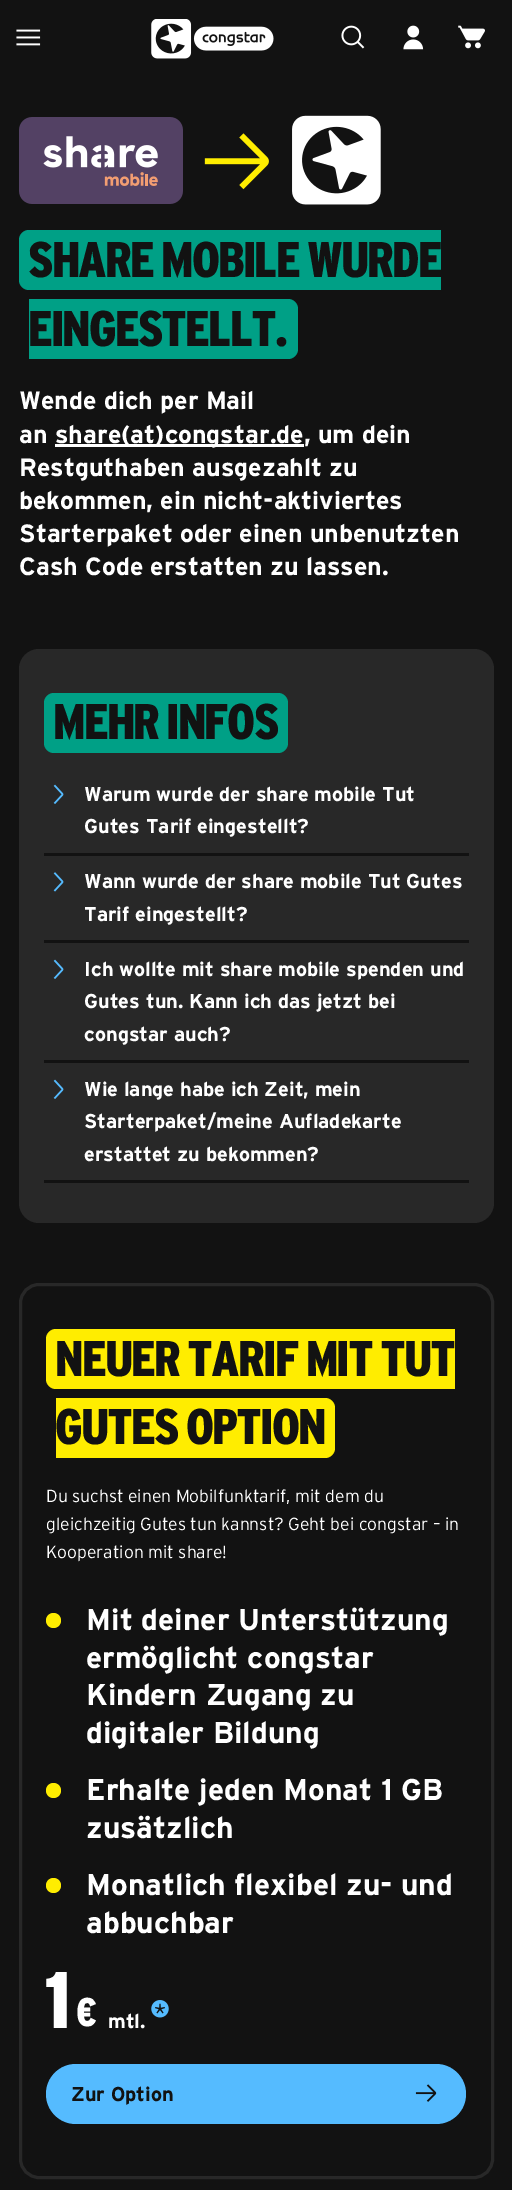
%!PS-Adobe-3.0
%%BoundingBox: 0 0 512 2190
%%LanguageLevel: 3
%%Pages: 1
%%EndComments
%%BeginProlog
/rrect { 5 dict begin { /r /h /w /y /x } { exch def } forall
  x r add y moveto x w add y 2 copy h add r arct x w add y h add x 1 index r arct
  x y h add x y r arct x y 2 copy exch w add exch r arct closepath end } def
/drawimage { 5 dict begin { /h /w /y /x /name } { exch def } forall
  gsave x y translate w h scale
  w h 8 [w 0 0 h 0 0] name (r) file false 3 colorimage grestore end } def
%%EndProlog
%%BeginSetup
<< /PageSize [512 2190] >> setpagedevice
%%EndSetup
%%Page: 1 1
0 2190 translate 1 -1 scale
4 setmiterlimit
0.071 setgray
0 0 512 2190 rectfill
(images/1.raw) 16 29 25 17 drawimage
(images/2.raw) 151 19 123 40 drawimage
(images/3.raw) 341 25 24 24 drawimage
(images/4.raw) 403 25 21 25 drawimage
(images/5.raw) 458 25 27 24 drawimage
(images/6.raw) 19 115 362 90 drawimage
0 0.627 0.525 setrgbcolor
newpath 29 230 moveto 441 230 lineto 441 290 lineto 29 290 lineto 23.5 290 19 285.5 19 280 curveto 19 240 lineto 19 234.5 23.5 230 29 230 curveto closepath fill
newpath 29 299 moveto 288 299 lineto 293.5 299 298 303.5 298 309 curveto 298 349 lineto 298 354.5 293.5 359 288 359 curveto 29 359 lineto closepath fill
1 setgray
55 444 249 3 rectfill
0.157 setgray
19 649 475 574 20 rrect fill
0 0.627 0.525 setrgbcolor
44 693 244 60 10 rrect fill
(images/7.raw) 53 784 11 20 drawimage
0.071 setgray
44 853 425 3 rectfill
(images/8.raw) 53 872 11 20 drawimage
44 940 425 3 rectfill
(images/7.raw) 53 959 11 20 drawimage
44 1060 425 3 rectfill
(images/7.raw) 53 1079 11 20 drawimage
44 1180 425 3 rectfill
0.157 setgray
3 setlinewidth
20.5 1284.5 472 893 18.5 rrect stroke
1 0.929 0 setrgbcolor
newpath 56 1329 moveto 455 1329 lineto 455 1389 lineto 56 1389 lineto 50.5 1389 46 1384.5 46 1379 curveto 46 1339 lineto 46 1333.5 50.5 1329 56 1329 curveto closepath fill
newpath 56 1398 moveto 325 1398 lineto 330.5 1398 335 1402.5 335 1408 curveto 335 1448 lineto 335 1453.5 330.5 1458 325 1458 curveto 56 1458 lineto closepath fill
newpath 53.5 1620.5 7.5 0 360 arc closepath fill
newpath 53.5 1790.5 7.5 0 360 arc closepath fill
newpath 53.5 1885.5 7.5 0 360 arc closepath fill
(images/9.raw) 151 2000 18 18 drawimage
0.333 0.733 1 setrgbcolor
46 2064 420 60 30 rrect fill
(images/10.raw) 415 2084 22 18 drawimage
/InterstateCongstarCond-Black [50 0 0 -50 0 0] selectfont
0.071 setgray
29 277 moveto (share mobile wurde) show
29 346 moveto (eingestellt.) show
/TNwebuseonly-Bold [25 0 0 -25 0 0] selectfont
1 setgray
19 409 moveto (Wende dich per Mail) show
19 443 moveto (an) show
55 443 moveto (share\(at\)congstar.de, um dein) show
19 476 moveto (Restguthaben ausgezahlt zu) show
19 509 moveto (bekommen, ein nicht-aktiviertes) show
19 542 moveto (Starterpaket oder einen unbenutzten) show
19 575 moveto (Cash Code erstatten zu lassen.) show
/InterstateCongstarCond-Black [50 0 0 -50 0 0] selectfont
0.071 setgray
54 739 moveto (Mehr Infos) show
/TNwebuseonly-Bold [20 0 0 -20 0 0] selectfont
1 setgray
84 801 moveto (Warum wurde der share mobile Tut) show
84 833 moveto (Gutes Tarif eingestellt?) show
84 888 moveto (Wann wurde der share mobile Tut Gutes) show
84 921 moveto (Tarif eingestellt?) show
84 976 moveto (Ich wollte mit share mobile spenden und) show
84 1008 moveto (Gutes tun. Kann ich das jetzt bei) show
84 1041 moveto (congstar auch?) show
84 1096 moveto (Wie lange habe ich Zeit, mein) show
84 1128 moveto (Starterpaket/meine Aufladekarte) show
84 1161 moveto (erstattet zu bekommen?) show
/InterstateCongstarCond-Black [50 0 0 -50 0 0] selectfont
0.071 setgray
56 1376 moveto (Neuer Tarif mit Tut) show
56 1444 moveto (Gutes Option) show
/TNwebuseonly-Light [17.5 0 0 -17.5 0 0] selectfont
1 setgray
46 1502 moveto (Du suchst einen Mobilfunktarif, mit dem du) show
46 1530 moveto (gleichzeitig Gutes tun kannst? Geht bei congstar – in) show
46 1558 moveto (Kooperation mit share!) show
/TNwebuseonly-Bold [30 0 0 -30 0 0] selectfont
86 1630 moveto (Mit deiner Unterstützung) show
86 1668 moveto (ermöglicht congstar) show
86 1705 moveto (Kindern Zugang zu) show
86 1743 moveto (digitaler Bildung) show
86 1800 moveto (Erhalte jeden Monat 1 GB) show
86 1838 moveto (zusätzlich) show
86 1895 moveto (Monatlich flexibel zu- und) show
86 1933 moveto (abbuchbar) show
/InterstateCongstarCond-Black [80 0 0 -80 0 0] selectfont
46 2028 moveto (1) show
/InterstateCongstarCond-Black [40 0 0 -40 0 0] selectfont
77 2026 moveto (€) show
/TNwebuseonly-Bold [20 0 0 -20 0 0] selectfont
108 2028 moveto (mtl.) show
0.071 setgray
71 2101 moveto (Zur Option) show
showpage
%%EOF
